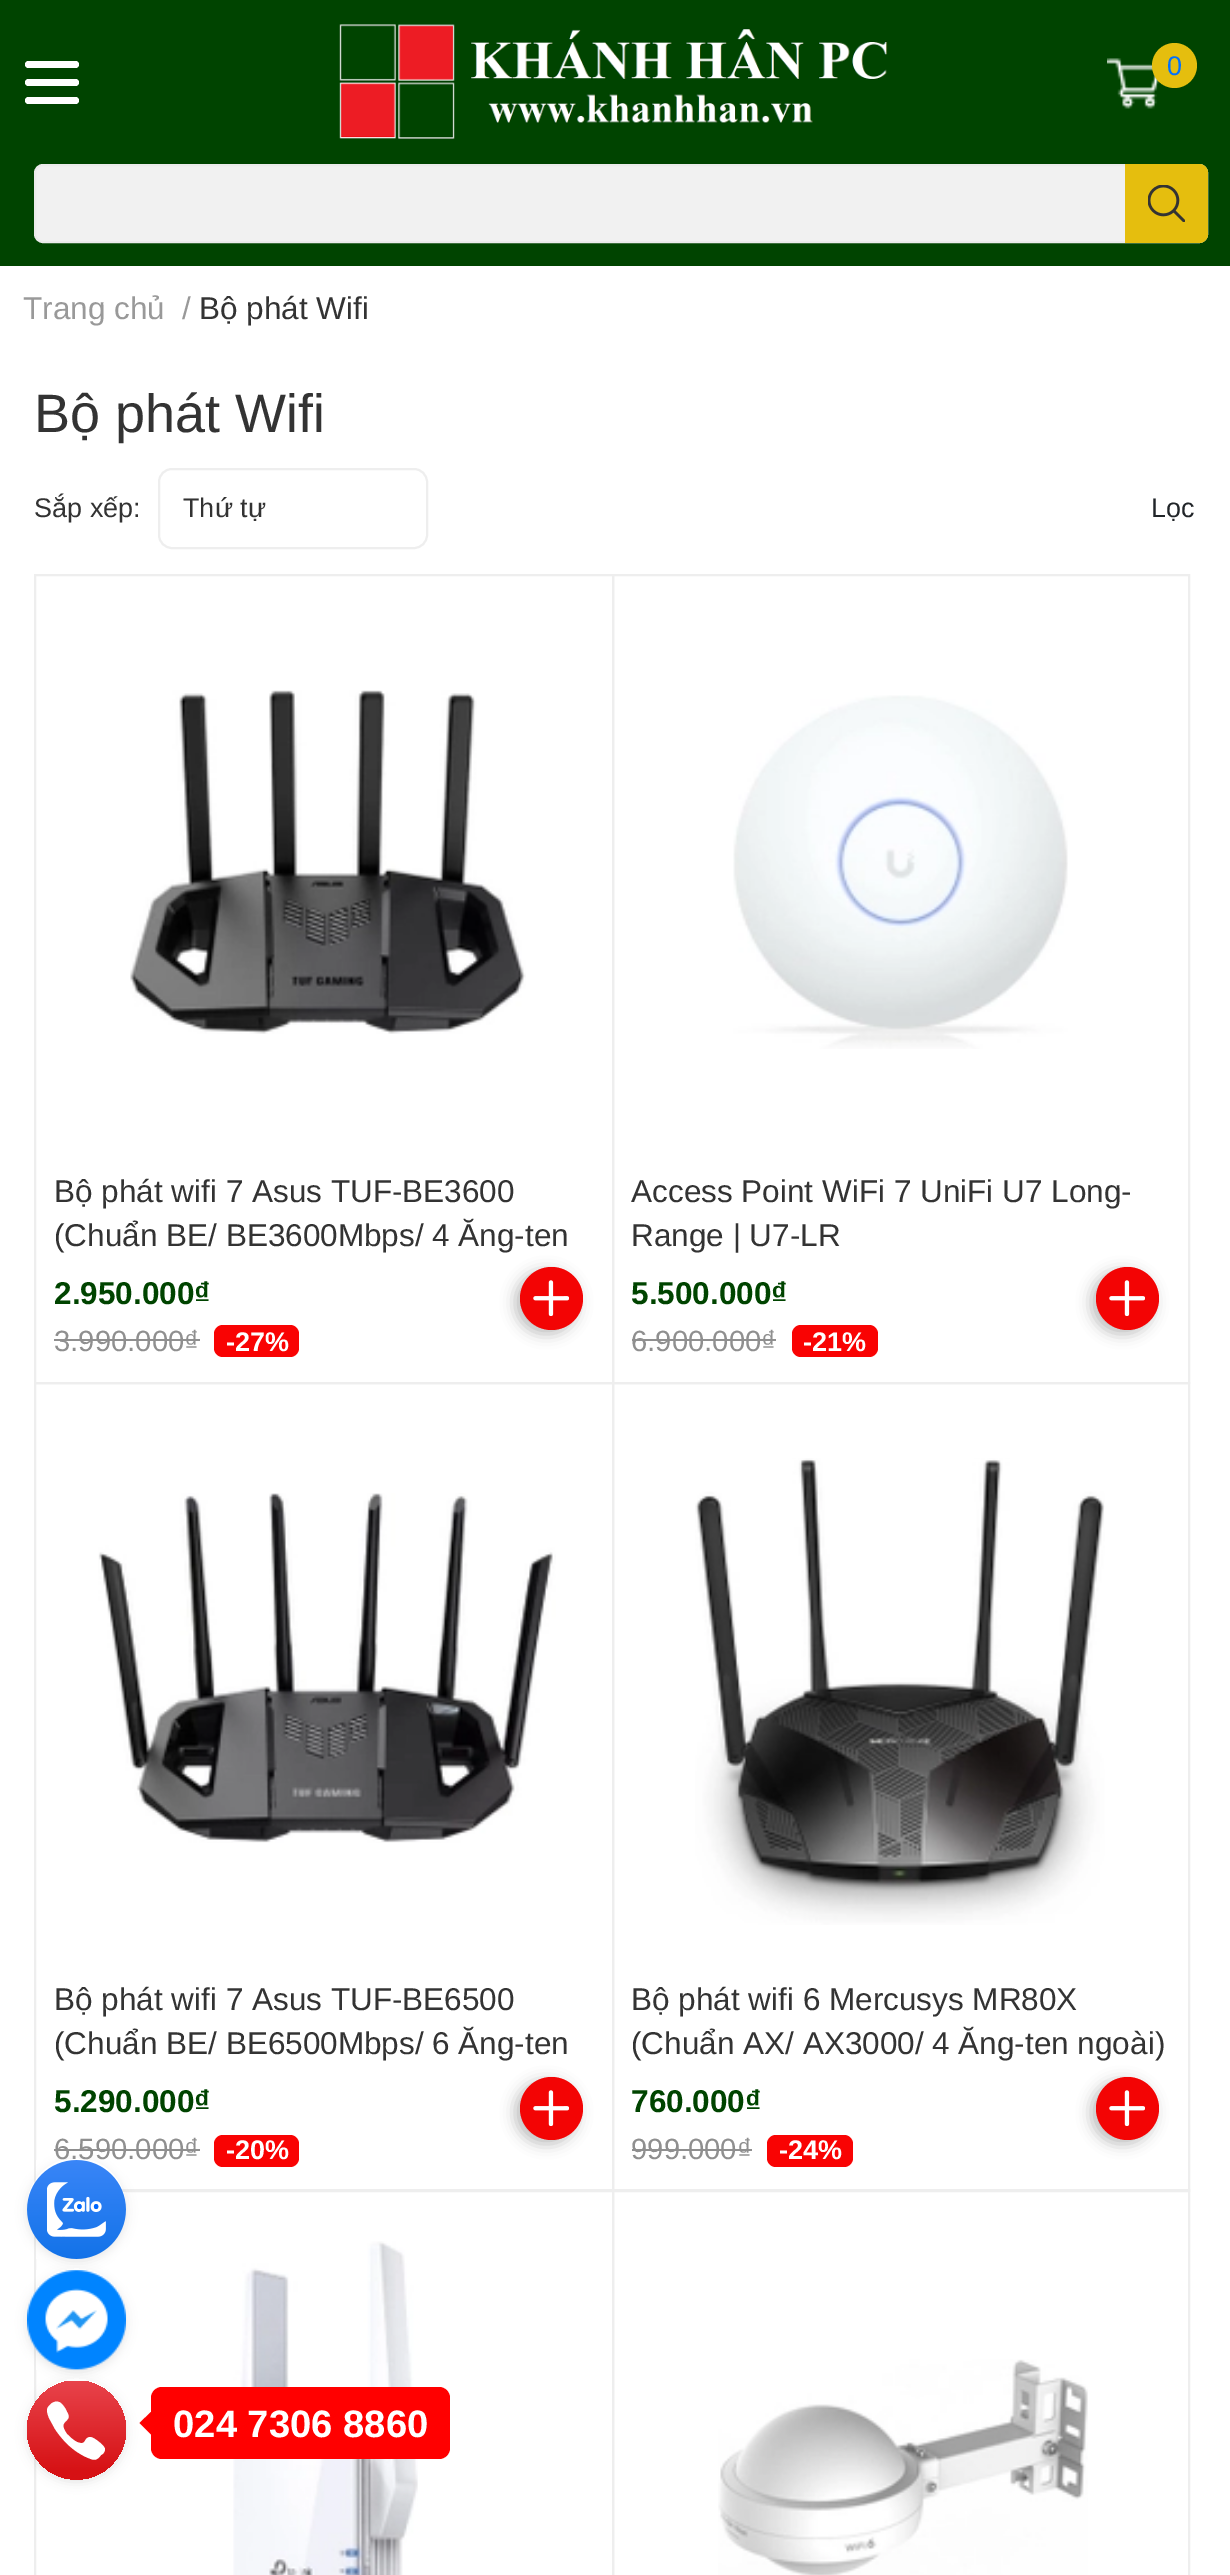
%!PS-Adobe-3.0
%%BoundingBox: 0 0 1230 2575
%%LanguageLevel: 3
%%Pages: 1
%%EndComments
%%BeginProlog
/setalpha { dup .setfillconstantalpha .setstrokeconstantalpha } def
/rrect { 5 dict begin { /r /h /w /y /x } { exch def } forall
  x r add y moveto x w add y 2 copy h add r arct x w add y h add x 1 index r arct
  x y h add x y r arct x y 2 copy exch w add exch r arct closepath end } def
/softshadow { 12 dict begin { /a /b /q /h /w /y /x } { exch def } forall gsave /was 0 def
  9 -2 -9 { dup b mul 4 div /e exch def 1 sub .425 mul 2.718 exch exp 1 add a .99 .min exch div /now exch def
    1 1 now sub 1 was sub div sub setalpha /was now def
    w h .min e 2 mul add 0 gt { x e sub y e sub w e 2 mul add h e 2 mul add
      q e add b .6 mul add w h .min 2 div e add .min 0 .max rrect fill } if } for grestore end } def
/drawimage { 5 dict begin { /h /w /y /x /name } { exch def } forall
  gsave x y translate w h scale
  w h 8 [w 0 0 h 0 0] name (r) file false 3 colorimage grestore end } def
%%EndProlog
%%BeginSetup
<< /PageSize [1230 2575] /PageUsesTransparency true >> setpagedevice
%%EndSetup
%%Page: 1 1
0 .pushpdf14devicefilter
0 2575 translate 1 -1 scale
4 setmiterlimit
1 setgray
0 0 1230 2575 rectfill
0 0.267 0 setrgbcolor
0 0 1230 266 rectfill
1 setgray
25 61 54 7 3.5 rrect fill
25 79 54 7 3.5 rrect fill
25 97 54 7 3.5 rrect fill
(images/1.raw) 339 24 549 115 drawimage
(images/2.raw) 1107 58 53 51 drawimage
0.898 0.745 0.055 setrgbcolor
newpath 1174.5 65.5 22.5 0 360 arc closepath fill
0.945 setgray
35 165 1172 77 8 rrect gsave fill grestore
0.922 setgray
2 setlinewidth
stroke
0.898 0.745 0.055 setrgbcolor
newpath 1125 164 moveto 1199 164 lineto 1204 164 1208 168 1208 173 curveto 1208 234 lineto 1208 239 1204 243 1199 243 curveto 1125 243 lineto closepath fill
(images/3.raw) 1148 185 37 37 drawimage
0.933 setgray
159 469 268 79 13 rrect stroke
35 575 578 808 rectstroke
(images/4.raw) 130 690 396 344 drawimage
0.561 setgray
54 1339 146 2 rectfill
0.976 0.012 0.012 setrgbcolor
214 1325 85 32 9 rrect fill
0 setgray
515 1271 63 63 31.5 7 0.25 softshadow
0.953 0.016 0.016 setrgbcolor
newpath 551.5 1298.5 31.5 0 360 arc closepath fill
(images/5.raw) 533 1280 36 36 drawimage
0.933 setgray
613 575 576 808 rectstroke
(images/6.raw) 733 695 335 354 drawimage
0.561 setgray
632 1339 144 2 rectfill
0.976 0.012 0.012 setrgbcolor
792 1325 86 32 9 rrect fill
0 setgray
1091 1271 63 63 31.5 7 0.25 softshadow
0.953 0.016 0.016 setrgbcolor
newpath 1127.5 1298.5 31.5 0 360 arc closepath fill
(images/5.raw) 1109 1280 36 36 drawimage
0.933 setgray
35 1383 578 808 rectstroke
(images/7.raw) 98 1493 458 350 drawimage
0.561 setgray
54 2149 146 2 rectfill
0.976 0.012 0.012 setrgbcolor
214 2135 85 32 9 rrect fill
0 setgray
515 2081 63 63 31.5 7 0.25 softshadow
0.953 0.016 0.016 setrgbcolor
newpath 551.5 2108.5 31.5 0 360 arc closepath fill
(images/5.raw) 533 2090 36 36 drawimage
0.933 setgray
613 1383 576 808 rectstroke
(images/8.raw) 695 1458 410 467 drawimage
0.561 setgray
632 2149 120 2 rectfill
0.976 0.012 0.012 setrgbcolor
767 2135 86 32 9 rrect fill
0 setgray
1091 2081 63 63 31.5 7 0.25 softshadow
0.953 0.016 0.016 setrgbcolor
newpath 1127.5 2108.5 31.5 0 360 arc closepath fill
(images/5.raw) 1109 2090 36 36 drawimage
0.933 setgray
35 2190 578 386 rectstroke
(images/9.raw) 233 2241 185 334 drawimage
613 2190 576 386 rectstroke
(images/10.raw) 718 2359 370 216 drawimage
gsave
newpath 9 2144 moveto 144 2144 lineto 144 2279 lineto 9 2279 lineto closepath 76.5 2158 moveto 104 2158 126 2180 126 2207.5 curveto 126 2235 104 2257 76.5 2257 curveto 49 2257 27 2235 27 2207.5 curveto 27 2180 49 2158 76.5 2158 curveto closepath eoclip newpath
0 setgray
27 2162 99 99 49.5 5.5 0.11 softshadow
grestore
(images/11.raw) 27 2160 99 99 drawimage
gsave
newpath 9 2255 moveto 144 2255 lineto 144 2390 lineto 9 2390 lineto closepath 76.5 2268 moveto 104 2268 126 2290 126 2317.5 curveto 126 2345 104 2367 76.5 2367 curveto 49 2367 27 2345 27 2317.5 curveto 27 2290 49 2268 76.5 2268 curveto closepath eoclip newpath
0 setgray
27 2273 99 99 49.5 5.5 0.11 softshadow
grestore
(images/12.raw) 27 2270 99 100 drawimage
gsave
newpath 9 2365 moveto 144 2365 lineto 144 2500 lineto 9 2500 lineto closepath 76.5 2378 moveto 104 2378 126 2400 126 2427.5 curveto 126 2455 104 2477 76.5 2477 curveto 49 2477 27 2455 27 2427.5 curveto 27 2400 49 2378 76.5 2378 curveto closepath eoclip newpath
0 setgray
27 2383 99 99 49.5 5.5 0.11 softshadow
grestore
gsave
27 2381 99 99 rectclip
gsave newpath 76.5 2430 49.5 0 360 arc closepath clip newpath
<< /ShadingType 2 /ColorSpace /DeviceRGB /Coords [77 2380 77 2472] /Extend [true true] /Function << /FunctionType 2 /Domain [0 1] /C0 [0.91 0.263 0.298] /C1 [0.839 0.067 0.078] /N 1 >> >> shfill grestore
grestore
1 setgray
newpath 59 2402 moveto 62 2403 66 2409 67 2412 curveto 74 2423 56 2419 67 2434 curveto 70 2437 73 2440 77 2442 curveto 87 2446 83 2438 90 2437 curveto 94 2437 105 2446 105 2449 curveto 105 2452 103 2454 101 2455 curveto 96 2462 93 2460 86 2457 curveto 73 2451 63 2441 55 2429 curveto 49 2418 lineto 46 2410 46 2408 52 2403 curveto 54 2402 56 2401 59 2402 curveto closepath eofill
1 0 0 setrgbcolor
151 2387 299 72 11 rrect fill
newpath 151 2412 moveto 151 2434.5 lineto 139.5 2423 lineto closepath fill
/LiberationSans-Regular [27 0 0 -27 0 0] selectfont
0 0.443 0.996 setrgbcolor
1167 75 moveto (0) show
/LiberationSans-Regular [31.5 0 0 -31.5 0 0] selectfont
0.6 setgray
23 319 moveto (Trang chủ) show
182 319 moveto (/) show
0.2 setgray
199 319 moveto (Bộ phát Wifi) show
/LiberationSans-Regular [54 0 0 -54 0 0] selectfont
34 432 moveto (Bộ phát Wifi) show
/LiberationSans-Regular [27 0 0 -27 0 0] selectfont
34 517 moveto (Sắp xếp:) show
183 517 moveto (Thứ tự) show
0.129 0.145 0.161 setrgbcolor
1151 517 moveto (Lọc) show
/LiberationSans-Regular [31.5 0 0 -31.5 0 0] selectfont
0.2 setgray
54 1202 moveto (Bộ phát wifi 7 Asus TUF-BE3600) show
54 1246 moveto (\(Chuẩn BE/ BE3600Mbps/ 4 Ăng-ten) show
/LiberationSans-Bold [31.5 0 0 -31.5 0 0] selectfont
0 0.267 0 setrgbcolor
54 1304 moveto (2.950.000₫) show
/LiberationSans-Regular [29.25 0 0 -29.25 0 0] selectfont
0.561 setgray
54 1351 moveto (3.990.000₫) show
/LiberationSans-Bold [27 0 0 -27 0 0] selectfont
1 setgray
226 1351 moveto (-27%) show
/LiberationSans-Regular [31.5 0 0 -31.5 0 0] selectfont
0.2 setgray
631 1202 moveto (Access Point WiFi 7 UniFi U7 Long-) show
631 1246 moveto (Range | U7-LR) show
/LiberationSans-Bold [31.5 0 0 -31.5 0 0] selectfont
0 0.267 0 setrgbcolor
631 1304 moveto (5.500.000₫) show
/LiberationSans-Regular [29.25 0 0 -29.25 0 0] selectfont
0.561 setgray
631 1351 moveto (6.900.000₫) show
/LiberationSans-Bold [27 0 0 -27 0 0] selectfont
1 setgray
803 1351 moveto (-21%) show
/LiberationSans-Regular [31.5 0 0 -31.5 0 0] selectfont
0.2 setgray
54 2010 moveto (Bộ phát wifi 7 Asus TUF-BE6500) show
54 2054 moveto (\(Chuẩn BE/ BE6500Mbps/ 6 Ăng-ten) show
/LiberationSans-Bold [31.5 0 0 -31.5 0 0] selectfont
0 0.267 0 setrgbcolor
54 2112 moveto (5.290.000₫) show
/LiberationSans-Regular [29.25 0 0 -29.25 0 0] selectfont
0.561 setgray
54 2159 moveto (6.590.000₫) show
/LiberationSans-Bold [27 0 0 -27 0 0] selectfont
1 setgray
226 2159 moveto (-20%) show
/LiberationSans-Regular [31.5 0 0 -31.5 0 0] selectfont
0.2 setgray
631 2010 moveto (Bộ phát wifi 6 Mercusys MR80X) show
631 2054 moveto (\(Chuẩn AX/ AX3000/ 4 Ăng-ten ngoài\)) show
/LiberationSans-Bold [31.5 0 0 -31.5 0 0] selectfont
0 0.267 0 setrgbcolor
631 2112 moveto (760.000₫) show
/LiberationSans-Regular [29.25 0 0 -29.25 0 0] selectfont
0.561 setgray
631 2159 moveto (999.000₫) show
/LiberationSans-Bold [27 0 0 -27 0 0] selectfont
1 setgray
779 2159 moveto (-24%) show
/LiberationSans-Bold [38.25 0 0 -38.25 0 0] selectfont
173 2437 moveto (024 7306 8860) show
.poppdf14devicefilter showpage
%%EOF
